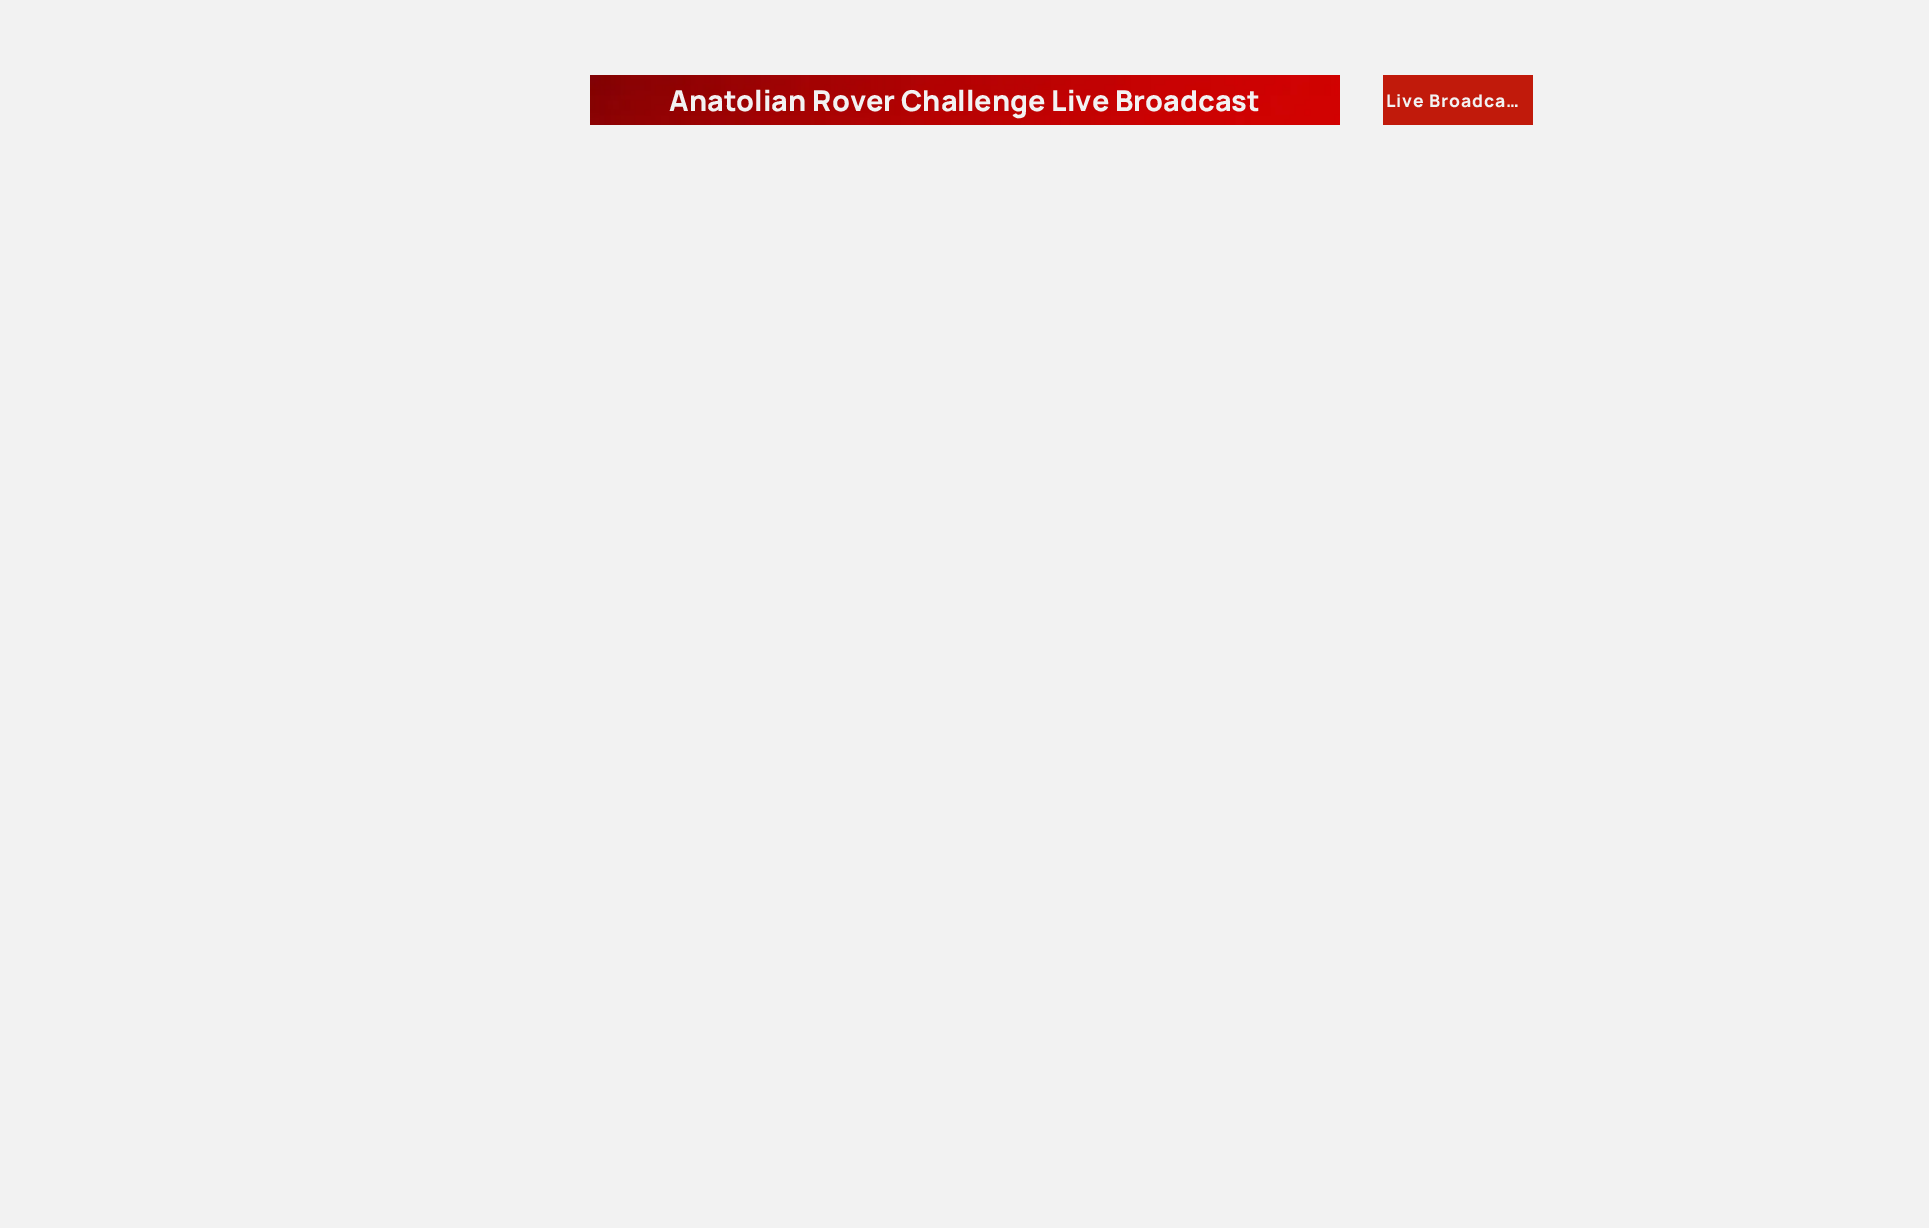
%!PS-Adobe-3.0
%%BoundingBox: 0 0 1929 1228
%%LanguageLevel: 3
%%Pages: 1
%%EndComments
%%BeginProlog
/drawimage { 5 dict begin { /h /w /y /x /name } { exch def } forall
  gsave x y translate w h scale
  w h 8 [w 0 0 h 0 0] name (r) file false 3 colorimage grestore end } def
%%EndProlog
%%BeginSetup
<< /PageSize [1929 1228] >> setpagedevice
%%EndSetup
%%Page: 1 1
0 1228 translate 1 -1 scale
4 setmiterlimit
0.949 setgray
0 0 1929 1228 rectfill
(images/1.raw) 590 75 750 50 drawimage
0.757 0.102 0.043 setrgbcolor
1383 75 150 50 rectfill
/Manrope-ExtraBold [28.75 0 0 -28.75 0 0] selectfont
0.949 setgray
669 111 moveto (Anatolian Rover Challenge Live Broadcast) show
/Manrope-ExtraBold [17.5 0 0 -17.5 0 0] selectfont
1386 107 moveto 0.9 0 (Live Broadca…) ashow
showpage
%%EOF
